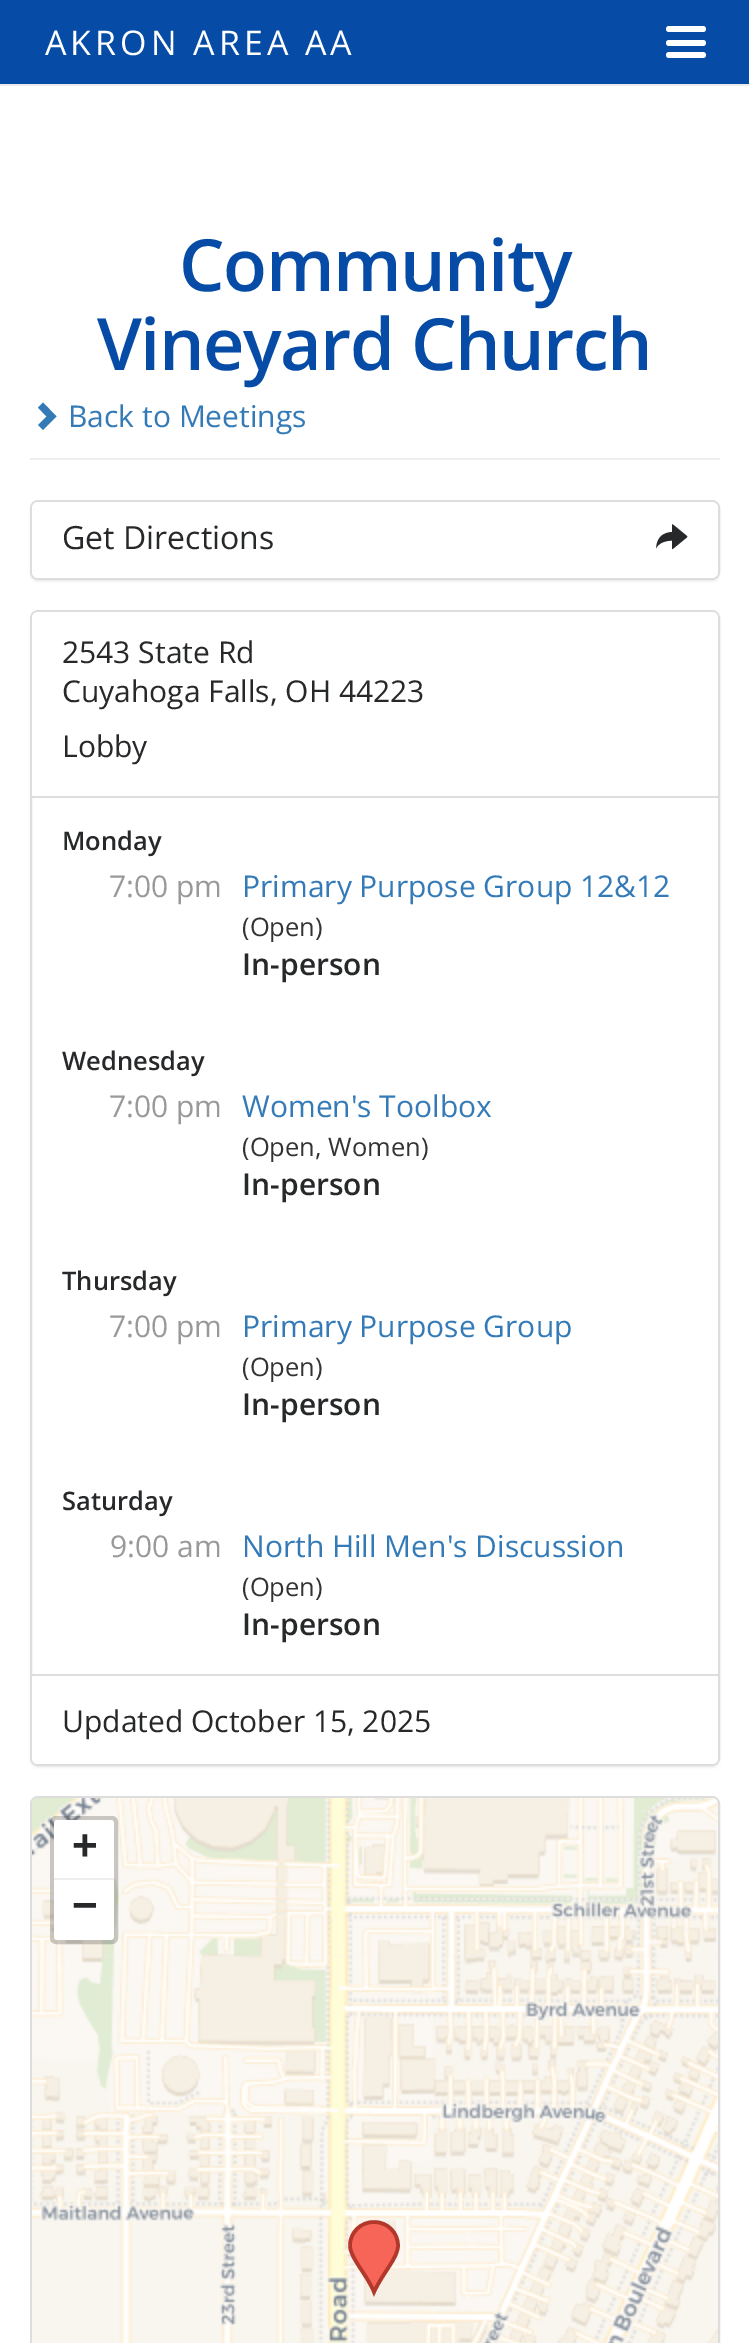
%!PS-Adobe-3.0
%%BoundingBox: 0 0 749 2343
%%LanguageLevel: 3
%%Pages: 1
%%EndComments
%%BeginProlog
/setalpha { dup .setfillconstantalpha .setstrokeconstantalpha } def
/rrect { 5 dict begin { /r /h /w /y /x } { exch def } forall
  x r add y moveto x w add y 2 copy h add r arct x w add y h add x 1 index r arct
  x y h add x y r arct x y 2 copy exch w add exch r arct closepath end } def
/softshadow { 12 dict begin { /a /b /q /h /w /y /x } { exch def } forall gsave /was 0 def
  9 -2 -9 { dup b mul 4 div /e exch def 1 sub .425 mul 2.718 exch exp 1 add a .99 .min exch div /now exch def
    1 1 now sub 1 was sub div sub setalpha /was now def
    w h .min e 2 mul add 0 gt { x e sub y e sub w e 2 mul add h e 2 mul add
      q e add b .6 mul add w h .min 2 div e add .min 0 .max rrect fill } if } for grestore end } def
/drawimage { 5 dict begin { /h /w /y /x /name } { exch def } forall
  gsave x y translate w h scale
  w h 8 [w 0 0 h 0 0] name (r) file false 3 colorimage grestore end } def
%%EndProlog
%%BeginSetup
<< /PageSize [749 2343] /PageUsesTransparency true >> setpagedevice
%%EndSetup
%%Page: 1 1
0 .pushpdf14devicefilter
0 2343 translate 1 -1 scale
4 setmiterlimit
1 setgray
0 0 749 2343 rectfill
0.922 setgray
0 84 749 2 rectfill
0.024 0.298 0.655 setrgbcolor
0 0 749 84 rectfill
1 setgray
666 40 40 6 3 rrect fill
666 26 40 6 3 rrect fill
666 52 40 6 3 rrect fill
0.933 setgray
30 458 690 2 rectfill
0.2 0.478 0.718 setrgbcolor
newpath 56.5 416.5 moveto 43 430 lineto 38 425 lineto 46.5 416.5 lineto 38 407.5 lineto 43 402.5 lineto closepath fill
0 setgray
30 502 690 80 8 1 0.05 softshadow
0.867 setgray
2 setlinewidth
31 501 688 78 7 rrect stroke
1 setgray
32 502 686 76 6 rrect fill
(images/1.raw) 656 524 32 26 drawimage
0 setgray
30 612 690 1156 8 1 0.05 softshadow
1 setgray
31 611 688 1154 7 rrect gsave fill grestore
0.867 setgray
stroke
1 setgray
newpath 38 612 moveto 712 612 lineto 715.5 612 718 614.5 718 618 curveto 718 798 lineto 32 798 lineto 32 618 lineto 32 614.5 34.5 612 38 612 curveto closepath fill
0.867 setgray
32 796 686 2 rectfill
1 setgray
newpath 32 1674 moveto 718 1674 lineto 718 1758 lineto 718 1761.5 715.5 1764 712 1764 curveto 38 1764 lineto 34.5 1764 32 1761.5 32 1758 curveto closepath fill
0.867 setgray
32 1674 686 2 rectfill
31 1797 688 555 7 rrect stroke
(images/4.raw) 32 1956 396 387 drawimage
(images/2.raw) 32 1798 396 159 drawimage
(images/5.raw) 428 1956 290 387 drawimage
(images/3.raw) 428 1798 290 159 drawimage
0.969 0.392 0.345 setrgbcolor
newpath 374 2222 moveto 387 2222 398 2232 398 2245 curveto 398 2258 384 2272 374 2292 curveto 367 2275 350 2258 350 2245 curveto 350 2232 361 2222 374 2222 curveto closepath fill
0.702 0.22 0.173 setrgbcolor
3.6 setlinewidth
newpath 374 2222 moveto 387.5 2222 398 2232.5 398 2245.5 curveto 398 2258 383.5 2271.5 374 2292 curveto 367 2274.5 350 2258 350 2245.5 curveto 350 2232.5 360.5 2222 374 2222 curveto closepath stroke
0.2 setalpha
0 setgray
4 setlinewidth
52 1818 64 124 4 rrect stroke
1 setalpha
1 setgray
newpath 58 1820 moveto 110 1820 lineto 112 1820 114 1822 114 1824 curveto 114 1880 lineto 54 1880 lineto 54 1824 lineto 54 1822 56 1820 58 1820 curveto closepath fill
0.933 setgray
54 1878 60 2 rectfill
1 setgray
newpath 54 1880 moveto 114 1880 lineto 114 1936 lineto 114 1938 112 1940 110 1940 curveto 58 1940 lineto 56 1940 54 1938 54 1936 curveto closepath fill
/OpenSans-Regular [34 0 0 -34 0 0] selectfont
45 55 moveto 4 0 (AKRON AREA AA) ashow
/OpenSans-SemiBold [72 0 0 -72 0 0] selectfont
0.024 0.298 0.655 setrgbcolor
179 291 moveto -1.5 0 (Community) ashow
97 370 moveto -1.5 0 (Vineyard Church) ashow
/OpenSans-Regular [30 0 0 -30 0 0] selectfont
0.2 0.478 0.718 setrgbcolor
68 427 moveto (Back to Meetings) show
/OpenSans-Regular [32 0 0 -32 0 0] selectfont
0.153 0.157 0.165 setrgbcolor
62 549 moveto (Get Directions) show
/OpenSans-Regular [30 0 0 -30 0 0] selectfont
62 663 moveto (2543 State Rd) show
62 702 moveto (Cuyahoga Falls, OH 44223) show
62 757 moveto (Lobby) show
/OpenSans-SemiBold [25.5 0 0 -25.5 0 0] selectfont
62 850 moveto (Monday) show
/OpenSans-Regular [30 0 0 -30 0 0] selectfont
0.6 setgray
109 897 moveto (7:00 pm) show
0.2 0.478 0.718 setrgbcolor
242 897 moveto (Primary Purpose Group 12&12) show
/OpenSans-Regular [25.5 0 0 -25.5 0 0] selectfont
0.2 setgray
242 936 moveto (\(Open\)) show
/OpenSans-SemiBold [30 0 0 -30 0 0] selectfont
0.153 0.157 0.165 setrgbcolor
242 975 moveto (In-person) show
/OpenSans-SemiBold [25.5 0 0 -25.5 0 0] selectfont
62 1070 moveto (Wednesday) show
/OpenSans-Regular [30 0 0 -30 0 0] selectfont
0.6 setgray
109 1117 moveto (7:00 pm) show
0.2 0.478 0.718 setrgbcolor
242 1117 moveto (Women's Toolbox) show
/OpenSans-Regular [25.5 0 0 -25.5 0 0] selectfont
0.2 setgray
242 1156 moveto (\(Open, Women\)) show
/OpenSans-SemiBold [30 0 0 -30 0 0] selectfont
0.153 0.157 0.165 setrgbcolor
242 1195 moveto (In-person) show
/OpenSans-SemiBold [25.5 0 0 -25.5 0 0] selectfont
62 1290 moveto (Thursday) show
/OpenSans-Regular [30 0 0 -30 0 0] selectfont
0.6 setgray
109 1337 moveto (7:00 pm) show
0.2 0.478 0.718 setrgbcolor
242 1337 moveto (Primary Purpose Group) show
/OpenSans-Regular [25.5 0 0 -25.5 0 0] selectfont
0.2 setgray
242 1376 moveto (\(Open\)) show
/OpenSans-SemiBold [30 0 0 -30 0 0] selectfont
0.153 0.157 0.165 setrgbcolor
242 1415 moveto (In-person) show
/OpenSans-SemiBold [25.5 0 0 -25.5 0 0] selectfont
62 1510 moveto (Saturday) show
/OpenSans-Regular [30 0 0 -30 0 0] selectfont
0.6 setgray
110 1557 moveto (9:00 am) show
0.2 0.478 0.718 setrgbcolor
242 1557 moveto (North Hill Men's Discussion) show
/OpenSans-Regular [25.5 0 0 -25.5 0 0] selectfont
0.2 setgray
242 1596 moveto (\(Open\)) show
/OpenSans-SemiBold [30 0 0 -30 0 0] selectfont
0.153 0.157 0.165 setrgbcolor
242 1635 moveto (In-person) show
/OpenSans-Regular [30 0 0 -30 0 0] selectfont
62 1732 moveto (Updated October 15, 2025) show
/LiberationSans-Bold [44 0 0 -44 0 0] selectfont
72 1860 moveto (+) show
72 1920 moveto (−) show
.poppdf14devicefilter showpage
%%EOF
